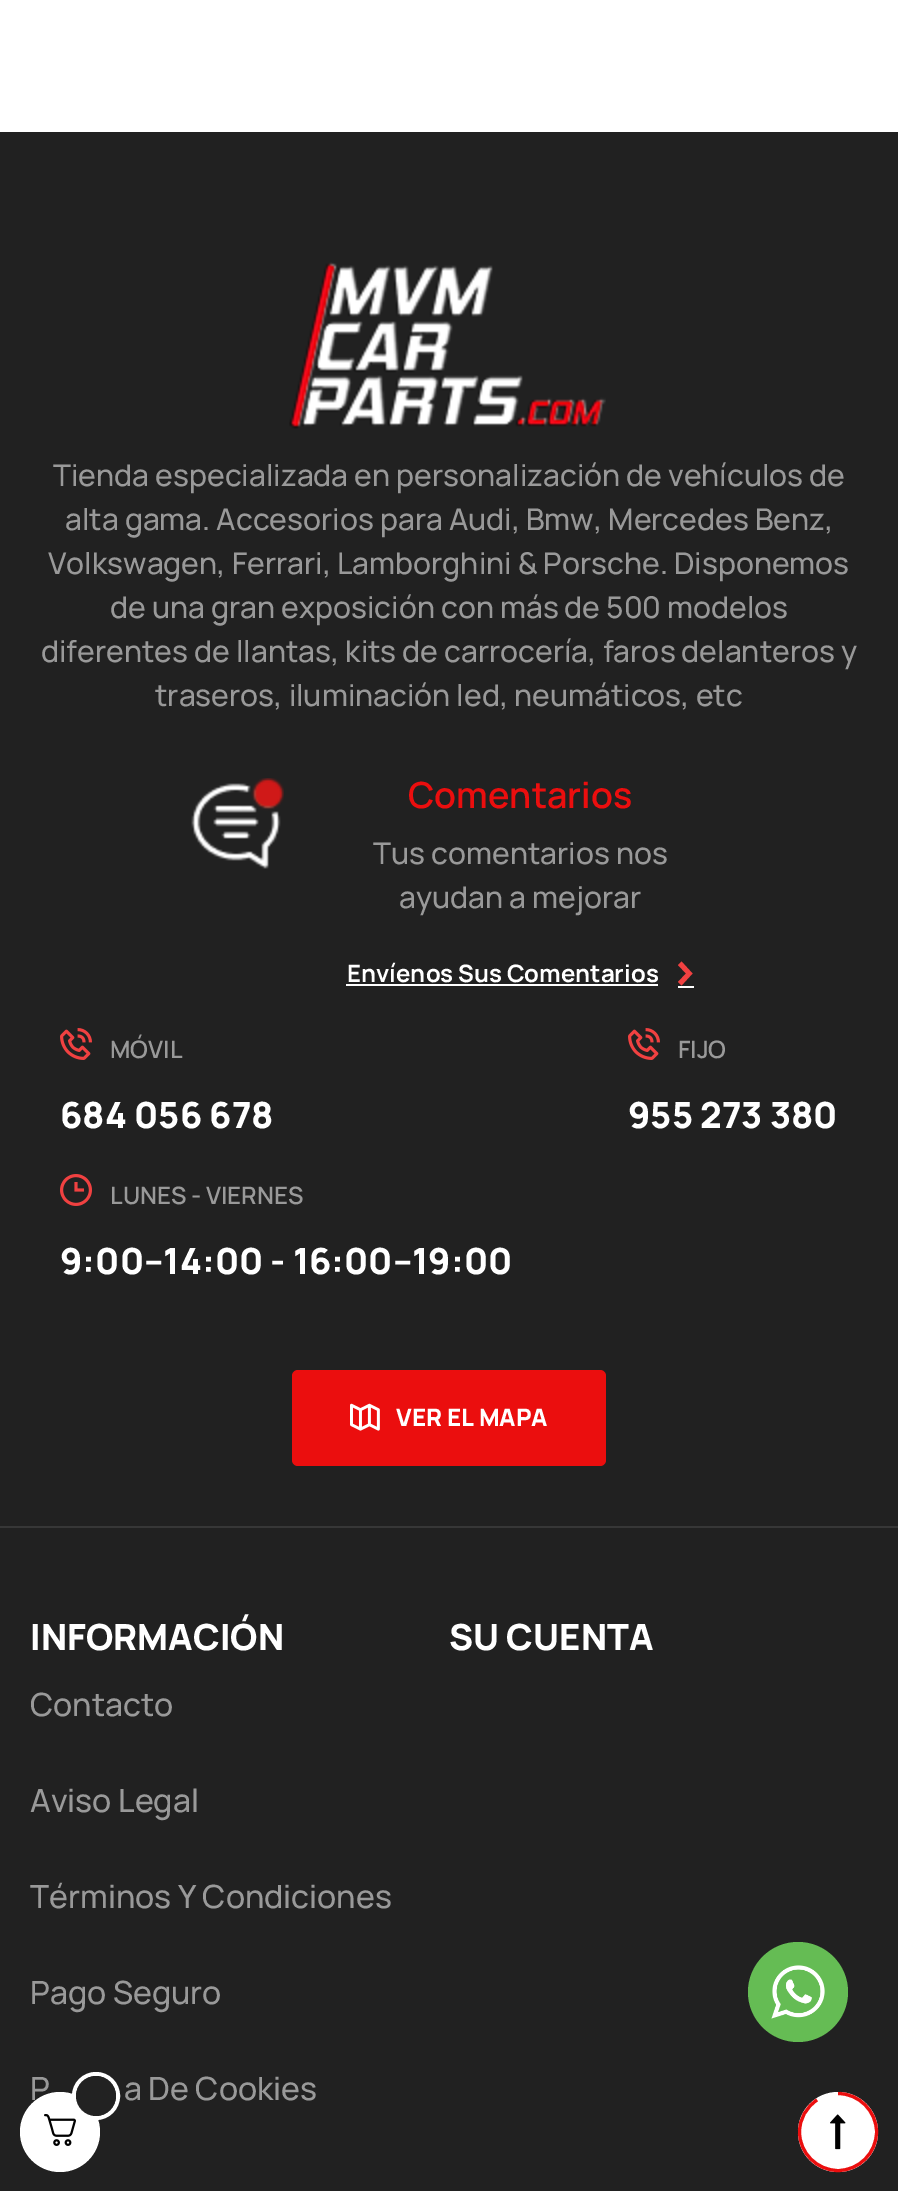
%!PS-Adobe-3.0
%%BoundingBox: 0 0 898 2191
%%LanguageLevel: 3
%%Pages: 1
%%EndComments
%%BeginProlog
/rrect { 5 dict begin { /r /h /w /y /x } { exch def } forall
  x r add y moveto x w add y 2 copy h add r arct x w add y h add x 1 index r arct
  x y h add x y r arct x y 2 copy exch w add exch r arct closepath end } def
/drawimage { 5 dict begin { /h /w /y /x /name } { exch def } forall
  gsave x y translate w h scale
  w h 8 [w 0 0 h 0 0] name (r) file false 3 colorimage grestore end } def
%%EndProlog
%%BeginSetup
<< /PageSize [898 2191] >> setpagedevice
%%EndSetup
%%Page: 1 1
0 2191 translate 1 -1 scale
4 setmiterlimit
1 setgray
0 0 898 2191 rectfill
0.129 setgray
0 132 898 2059 rectfill
(images/1.raw) 289 262 317 167 drawimage
(images/2.raw) 191 778 93 91 drawimage
1 setgray
346 984 312 2 rectfill
678 986 16 2 rectfill
0.945 0.255 0.255 setrgbcolor
newpath 678 965 moveto 686 973.5 lineto 678 982 lineto 681.5 985.5 lineto 692.5 973.5 lineto 681.5 961.5 lineto closepath fill
0.216 setgray
0 1526 898 2 rectfill
(images/3.raw) 60 1028 32 32 drawimage
(images/3.raw) 628 1028 32 32 drawimage
(images/4.raw) 60 1174 32 32 drawimage
0.922 0.055 0.055 setrgbcolor
292 1370 314 96 6 rrect fill
(images/5.raw) 350 1403 30 28 drawimage
0.396 0.737 0.329 setrgbcolor
newpath 798 1992 50 0 360 arc closepath fill
(images/6.raw) 771 1965 54 54 drawimage
1 setgray
newpath 838 2132 40 0 360 arc closepath fill
0.922 0.055 0.055 setrgbcolor
3.1 setlinewidth
newpath 838 2093.5 moveto 859 2093.5 876.5 2111 876.5 2132 curveto 876.5 2153 859 2170.5 838 2170.5 curveto 817 2170.5 799.5 2153 799.5 2132 curveto 799.5 2118.5 806.5 2107 817 2100 curveto stroke
(images/7.raw) 830 2114 16 36 drawimage
/Manrope-Medium [30 0 0 -30 0 0] selectfont
0.6 setgray
53 486 moveto (Tienda especializada en personalización de vehículos de) show
65 530 moveto (alta gama. Accesorios para Audi, Bmw, Mercedes Benz,) show
48 574 moveto (Volkswagen, Ferrari, Lamborghini & Porsche. Disponemos) show
110 618 moveto (de una gran exposición con más de 500 modelos) show
41 662 moveto (diferentes de llantas, kits de carrocería, faros delanteros y) show
155 706 moveto (traseros, iluminación led, neumáticos, etc) show
/Manrope-SemiBold [36 0 0 -36 0 0] selectfont
0.922 0.055 0.055 setrgbcolor
408 808 moveto (Comentarios) show
/Manrope-Medium [30 0 0 -30 0 0] selectfont
0.6 setgray
373 864 moveto (Tus comentarios nos) show
399 908 moveto (ayudan a mejorar) show
/Manrope-Bold [24 0 0 -24 0 0] selectfont
1 setgray
347 982 moveto (Envíenos Sus Comentarios) show
/Manrope-SemiBold [24 0 0 -24 0 0] selectfont
0.6 setgray
110 1058 moveto (MÓVIL) show
/Manrope-ExtraBold [36 0 0 -36 0 0] selectfont
1 setgray
60 1128 moveto (684 056 678) show
/Manrope-SemiBold [24 0 0 -24 0 0] selectfont
0.6 setgray
678 1058 moveto (FIJO) show
/Manrope-ExtraBold [36 0 0 -36 0 0] selectfont
1 setgray
628 1128 moveto (955 273 380) show
/Manrope-SemiBold [24 0 0 -24 0 0] selectfont
0.6 setgray
110 1204 moveto (LUNES - VIERNES) show
/Manrope-ExtraBold [36 0 0 -36 0 0] selectfont
1 setgray
60 1274 moveto (9:00–14:00 - 16:00–19:00) show
/Manrope-ExtraBold [24 0 0 -24 0 0] selectfont
396 1426 moveto (VER EL MAPA) show
/Manrope-ExtraBold [36 0 0 -36 0 0] selectfont
30 1650 moveto (INFORMACIÓN) show
/Manrope-Medium [32 0 0 -32 0 0] selectfont
0.6 setgray
30 1716 moveto (Contacto) show
30 1812 moveto (Aviso Legal) show
30 1908 moveto (Términos Y Condiciones) show
30 2004 moveto (Pago Seguro) show
30 2100 moveto (P) show
124 2100 moveto (a De Cookies) show
/Manrope-ExtraBold [36 0 0 -36 0 0] selectfont
1 setgray
449 1650 moveto (SU CUENTA) show
newpath 60 2132 40 0 360 arc closepath fill
(images/8.raw) 44 2114 32 32 drawimage
4 setlinewidth
newpath 96 2096 22 0 360 arc closepath stroke
0.133 setgray
newpath 96 2096 20 0 360 arc closepath fill
showpage
%%EOF
